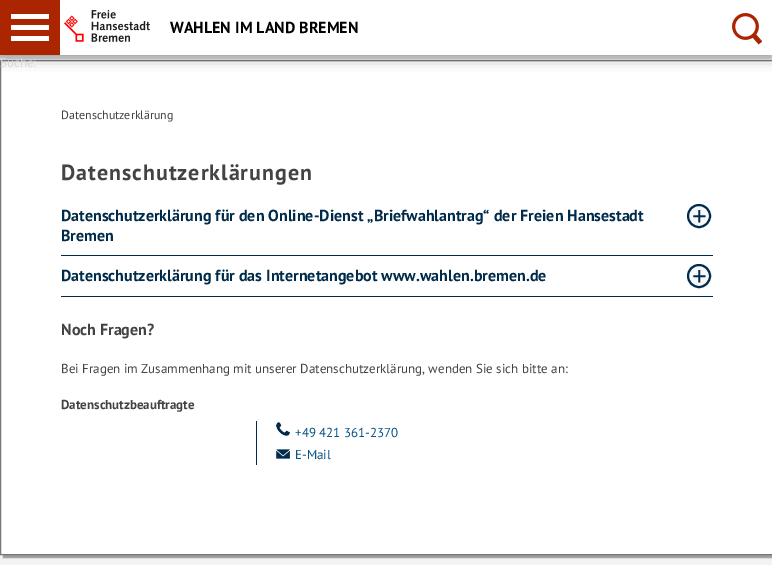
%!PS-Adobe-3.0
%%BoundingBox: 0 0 772 565
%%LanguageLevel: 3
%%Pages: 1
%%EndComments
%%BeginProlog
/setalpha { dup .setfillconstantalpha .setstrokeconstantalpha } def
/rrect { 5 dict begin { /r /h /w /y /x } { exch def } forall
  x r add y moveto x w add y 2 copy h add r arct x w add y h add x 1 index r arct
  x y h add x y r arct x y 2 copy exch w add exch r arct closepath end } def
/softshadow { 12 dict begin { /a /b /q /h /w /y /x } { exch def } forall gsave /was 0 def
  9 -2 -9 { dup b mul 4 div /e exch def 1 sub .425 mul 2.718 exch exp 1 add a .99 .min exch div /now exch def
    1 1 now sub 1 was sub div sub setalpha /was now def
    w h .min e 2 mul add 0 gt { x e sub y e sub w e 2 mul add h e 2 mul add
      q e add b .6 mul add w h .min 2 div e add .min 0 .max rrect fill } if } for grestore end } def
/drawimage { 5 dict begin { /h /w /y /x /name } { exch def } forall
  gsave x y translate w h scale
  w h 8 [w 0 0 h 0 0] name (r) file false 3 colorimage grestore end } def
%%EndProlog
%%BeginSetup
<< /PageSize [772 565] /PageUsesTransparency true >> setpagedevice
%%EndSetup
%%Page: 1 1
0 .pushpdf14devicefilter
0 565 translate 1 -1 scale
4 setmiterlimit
0.953 setgray
0 0 772 565 rectfill
0.196 setgray
3 63 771 495 0 0.5 0.45 softshadow
1 setgray
newpath 0.5 60.5 moveto 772.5 60.5 lineto 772.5 554.5 lineto 0.5 554.5 lineto closepath gsave fill grestore
0.467 setgray
stroke
0.392 setgray
0 2 772 55 0 6.5 0.8 softshadow
0.671 0.149 0 setrgbcolor
0 0 60 55 rectfill
1 setgray
11 14 38 5 1 rrect fill
11 25 38 5 1 rrect fill
11 36 38 5 1 rrect fill
60 0 712 55 rectfill
(images/1.raw) 64 10 86 32 drawimage
(images/2.raw) 732 13 30 32 drawimage
0 0.169 0.294 setrgbcolor
61 255 652 1 rectfill
0.965 0.973 0.98 setrgbcolor
newpath 699 216 11 0 360 arc closepath gsave fill grestore
0 0.169 0.294 setrgbcolor
2 setlinewidth
stroke
61 296 652 1 rectfill
0.965 0.973 0.98 setrgbcolor
newpath 699 276 11 0 360 arc closepath gsave fill grestore
0 0.169 0.294 setrgbcolor
stroke
256 421 1 44 rectfill
(images/3.raw) 276 422 14 14 drawimage
(images/4.raw) 276 449 14 10 drawimage
/PTSans-Bold [16 0 0 -16 0 0] selectfont
0 setgray
170 33 moveto (WAHLEN IM LAND BREMEN) show
/PTSans-Regular [13 0 0 -13 0 0] selectfont
0.851 setgray
0 67 moveto (Suche:) show
/PTSans-Regular [12 0 0 -12 0 0] selectfont
0.263 0.263 0.271 setrgbcolor
61 119 moveto (Datenschutzerklärung) show
/PTSans-Bold [22 0 0 -22 0 0] selectfont
61 180 moveto 1 0 (Datenschutzerklärungen) ashow
/PTSans-Bold [16 0 0 -16 0 0] selectfont
0 0.169 0.294 setrgbcolor
61 221 moveto (Datenschutzerklärung für den Online-Dienst „Briefwahlantrag“ der Freien Hansestadt) show
/PTSans-Regular [29 0 0 -29 0 0] selectfont
692 226 moveto (+) show
/PTSans-Bold [16 0 0 -16 0 0] selectfont
61 241 moveto (Bremen) show
61 281 moveto (Datenschutzerklärung für das Internetangebot www.wahlen.bremen.de) show
/PTSans-Regular [29 0 0 -29 0 0] selectfont
692 286 moveto (+) show
/PTSans-Bold [16 0 0 -16 0 0] selectfont
0.263 0.263 0.271 setrgbcolor
61 335 moveto (Noch Fragen?) show
/PTSans-Regular [13 0 0 -13 0 0] selectfont
61 373 moveto (Bei Fragen im Zusammenhang mit unserer Datenschutzerklärung, wenden Sie sich bitte an:) show
/PTSans-Bold [13 0 0 -13 0 0] selectfont
61 409 moveto (Datenschutzbeauftragte) show
/PTSans-Regular [13 0 0 -13 0 0] selectfont
0.031 0.329 0.533 setrgbcolor
295 437 moveto (+49 421 361-2370) show
295 459 moveto (E-Mail) show
.poppdf14devicefilter showpage
%%EOF
